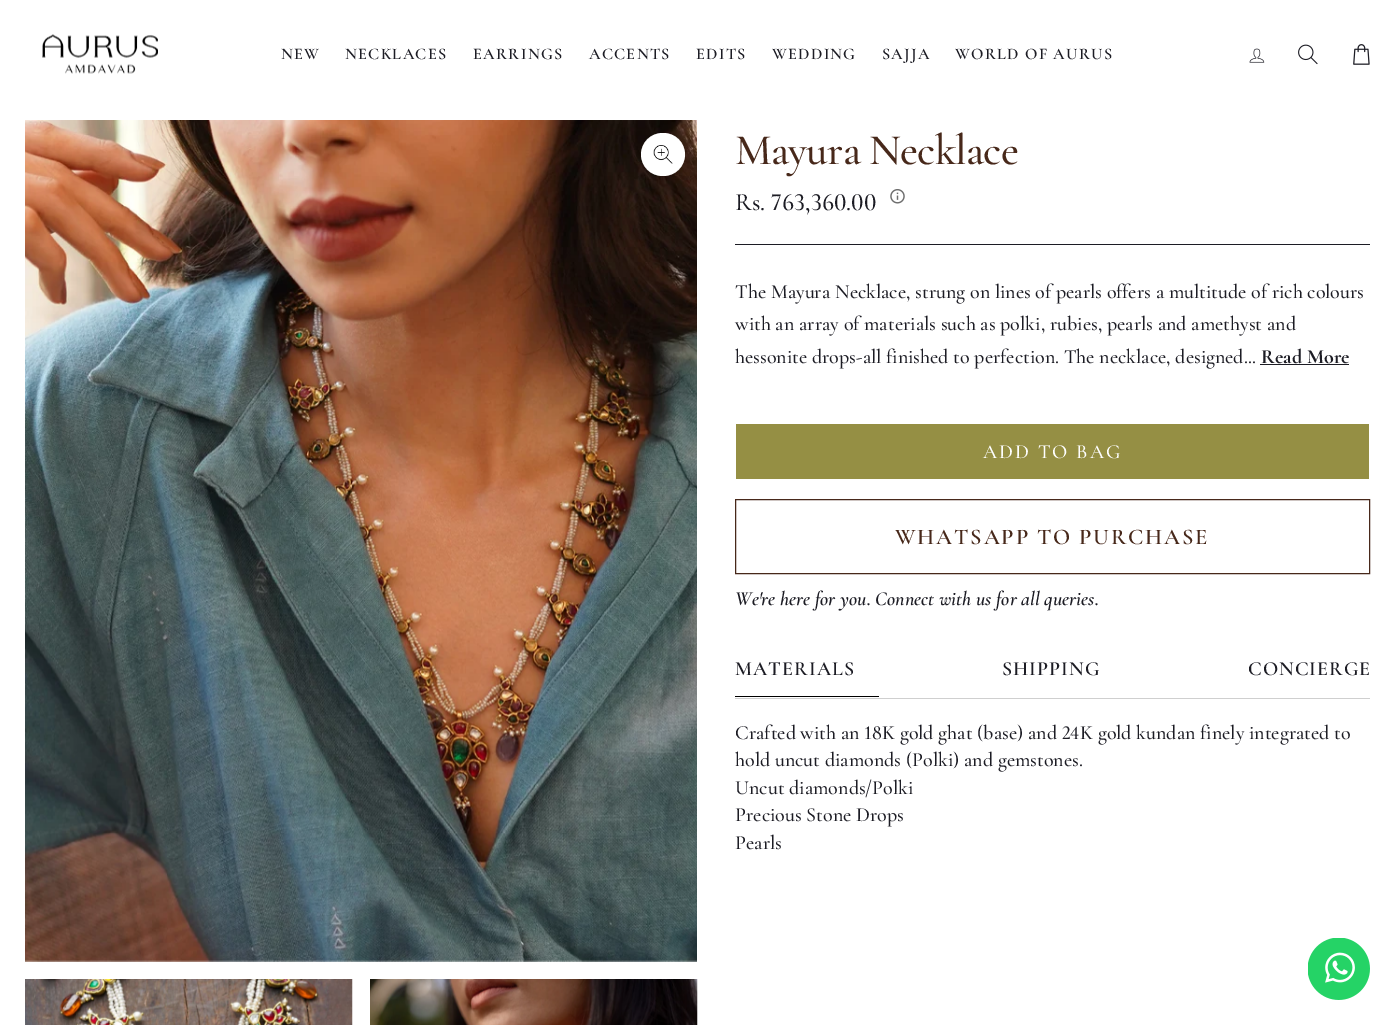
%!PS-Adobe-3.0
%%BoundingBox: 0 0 1395 1025
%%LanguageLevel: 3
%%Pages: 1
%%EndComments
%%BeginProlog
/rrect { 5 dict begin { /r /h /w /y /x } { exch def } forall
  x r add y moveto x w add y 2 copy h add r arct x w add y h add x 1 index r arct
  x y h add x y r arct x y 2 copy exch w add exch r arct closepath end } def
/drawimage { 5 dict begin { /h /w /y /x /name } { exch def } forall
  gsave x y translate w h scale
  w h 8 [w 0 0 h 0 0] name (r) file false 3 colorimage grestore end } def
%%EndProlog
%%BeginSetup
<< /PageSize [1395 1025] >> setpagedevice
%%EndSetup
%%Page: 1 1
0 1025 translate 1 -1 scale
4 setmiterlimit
1 setgray
0 0 1395 1025 rectfill
(images/1.raw) 42 34 116 40 drawimage
(images/2.raw) 1249 48 16 15 drawimage
(images/3.raw) 1298 44 20 21 drawimage
(images/4.raw) 1353 44 17 21 drawimage
(images/5.raw) 25 120 672 842 drawimage
641 133 44 43 21.5 rrect fill
(images/6.raw) 653 145 20 19 drawimage
(images/7.raw) 25 979 328 46 drawimage
(images/8.raw) 370 979 328 46 drawimage
0.11 0.11 0.141 setrgbcolor
735 244 635 1 rectfill
(images/9.raw) 890 189 15 15 drawimage
1260 364 89 1 rectfill
0.584 0.561 0.267 setrgbcolor
736 424 633 55 rectfill
0.278 0.157 0.102 setrgbcolor
735.5 499.5 634 74 rectstroke
0.812 setgray
735 698 635 1 rectfill
0 setgray
735 696 144 1 rectfill
(images/10.raw) 1308 938 62 62 drawimage
/CormorantGaramond-SemiBold [16.25 0 0 -16.25 0 0] selectfont
0.11 0.11 0.141 setrgbcolor
281 59 moveto 1.25 0 (NEW) ashow
345 59 moveto 1.25 0 (NECKLACES) ashow
473 59 moveto 1.25 0 (EARRINGS) ashow
589 59 moveto 1.25 0 (ACCENTS) ashow
696 59 moveto 1.25 0 (EDITS) ashow
772 59 moveto 1.25 0 (WEDDING) ashow
882 59 moveto 1.25 0 (SAJJA) ashow
955 59 moveto 1.25 0 (WORLD OF AURUS) ashow
/CormorantGaramond-Medium [43.75 0 0 -43.75 0 0] selectfont
0.278 0.157 0.102 setrgbcolor
735 164 moveto -0.9 0 (Mayura Necklace) ashow
/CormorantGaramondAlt-Medium [25 0 0 -25 0 0] selectfont
0.11 0.11 0.141 setrgbcolor
735 210 moveto (Rs. 763,360.00) show
/CormorantGaramond-Medium [20 0 0 -20 0 0] selectfont
735 298 moveto (The Mayura Necklace, strung on lines of pearls offers a multitude of rich colours) show
735 330 moveto (with an array of materials such as polki, rubies, pearls and amethyst and) show
735 363 moveto (hessonite drops-all finished to perfection. The necklace, designed...) show
/CormorantGaramond-Bold [20 0 0 -20 0 0] selectfont
1261 363 moveto (Read More) show
/CormorantGaramond-Medium [20 0 0 -20 0 0] selectfont
1 setgray
983 458 moveto 2 0 (ADD TO BAG) ashow
/CormorantGaramond-SemiBold [22.5 0 0 -22.5 0 0] selectfont
0.278 0.157 0.102 setrgbcolor
895 544 moveto 1.8 0 (WHATSAPP TO PURCHASE) ashow
/CormorantGaramond-SemiBoldItalic [20 0 0 -20 0 0] selectfont
0.11 0.11 0.141 setrgbcolor
735 605 moveto (We're here for you. Connect with us for all queries.) show
/CormorantGaramond-SemiBold [20 0 0 -20 0 0] selectfont
735 675 moveto 1 0 (MATERIALS) ashow
1002 675 moveto 1 0 (SHIPPING) ashow
1248 675 moveto 1 0 (CONCIERGE) ashow
/CormorantGaramondAlt-Medium [20 0 0 -20 0 0] selectfont
735 739 moveto (Crafted with an 18K gold ghat \(base\) and 24K gold kundan finely integrated to) show
/CormorantGaramond-Medium [20 0 0 -20 0 0] selectfont
735 766 moveto (hold uncut diamonds \(Polki\) and gemstones.) show
735 794 moveto (Uncut diamonds/Polki) show
735 821 moveto (Precious Stone Drops) show
735 849 moveto (Pearls) show
showpage
%%EOF
